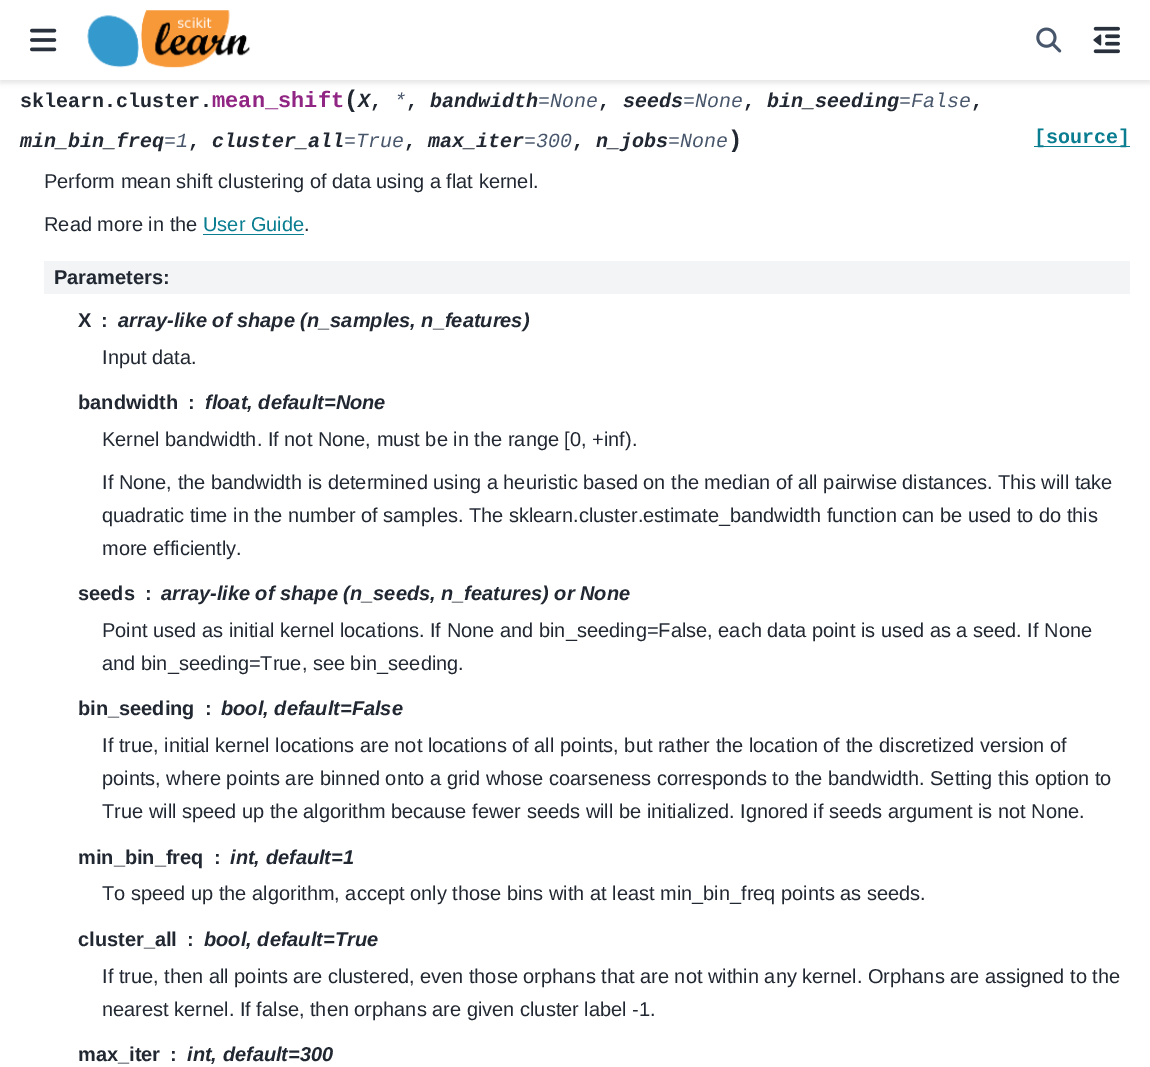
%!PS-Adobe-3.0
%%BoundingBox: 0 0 1150 1067
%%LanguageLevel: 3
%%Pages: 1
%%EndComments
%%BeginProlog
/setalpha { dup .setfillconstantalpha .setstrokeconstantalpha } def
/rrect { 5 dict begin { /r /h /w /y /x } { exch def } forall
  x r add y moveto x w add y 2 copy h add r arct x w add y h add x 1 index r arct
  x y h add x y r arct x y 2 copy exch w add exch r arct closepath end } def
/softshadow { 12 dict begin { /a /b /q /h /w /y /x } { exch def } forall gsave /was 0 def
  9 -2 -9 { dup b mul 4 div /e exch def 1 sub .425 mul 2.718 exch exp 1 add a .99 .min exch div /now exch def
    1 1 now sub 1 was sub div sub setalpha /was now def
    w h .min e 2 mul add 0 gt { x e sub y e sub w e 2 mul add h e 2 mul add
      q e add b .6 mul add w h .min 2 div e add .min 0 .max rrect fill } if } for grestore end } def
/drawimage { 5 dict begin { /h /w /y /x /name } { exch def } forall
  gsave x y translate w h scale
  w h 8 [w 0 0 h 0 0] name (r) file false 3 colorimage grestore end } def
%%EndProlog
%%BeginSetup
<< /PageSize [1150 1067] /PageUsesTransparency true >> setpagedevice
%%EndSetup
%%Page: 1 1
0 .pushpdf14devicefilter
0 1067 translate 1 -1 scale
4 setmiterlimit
1 setgray
0 0 1150 1067 rectfill
0 setgray
0 3 1150 80 0 2.5 0.1 softshadow
1 setgray
0 0 1150 80 rectfill
(images/1.raw) 30 28 27 24 drawimage
(images/2.raw) 87 10 164 58 drawimage
(images/3.raw) 1036 27 26 26 drawimage
(images/4.raw) 1093 26 27 28 drawimage
0.039 0.49 0.569 setrgbcolor
1034 146 96 1 rectfill
203 234 101 1 rectfill
0.953 0.957 0.961 setrgbcolor
44 261 1086 33 rectfill
/LiberationMono-Bold [20 0 0 -20 0 0] selectfont
0.133 0.157 0.196 setrgbcolor
20 107 moveto (sklearn.cluster.) show
/LiberationMono-Bold [22 0 0 -22 0 0] selectfont
0.569 0.145 0.514 setrgbcolor
212 107 moveto (mean_shift) show
/LiberationMono-Bold [24 0 0 -24 0 0] selectfont
0.133 0.157 0.196 setrgbcolor
344 107 moveto (\() show
/LiberationMono-BoldItalic [20 0 0 -20 0 0] selectfont
358 107 moveto (X) show
/LiberationMono-Bold [20 0 0 -20 0 0] selectfont
370 107 moveto (,) show
/LiberationMono-Italic [20 0 0 -20 0 0] selectfont
0.282 0.337 0.42 setrgbcolor
394 107 moveto (*) show
/LiberationMono-Bold [20 0 0 -20 0 0] selectfont
0.133 0.157 0.196 setrgbcolor
406 107 moveto (,) show
/LiberationMono-BoldItalic [20 0 0 -20 0 0] selectfont
430 107 moveto (bandwidth) show
/LiberationMono-Italic [20 0 0 -20 0 0] selectfont
0.282 0.337 0.42 setrgbcolor
538 107 moveto (=None) show
/LiberationMono-Bold [20 0 0 -20 0 0] selectfont
0.133 0.157 0.196 setrgbcolor
598 107 moveto (,) show
/LiberationMono-BoldItalic [20 0 0 -20 0 0] selectfont
623 107 moveto (seeds) show
/LiberationMono-Italic [20 0 0 -20 0 0] selectfont
0.282 0.337 0.42 setrgbcolor
683 107 moveto (=None) show
/LiberationMono-Bold [20 0 0 -20 0 0] selectfont
0.133 0.157 0.196 setrgbcolor
743 107 moveto (,) show
/LiberationMono-BoldItalic [20 0 0 -20 0 0] selectfont
767 107 moveto (bin_seeding) show
/LiberationMono-Italic [20 0 0 -20 0 0] selectfont
0.282 0.337 0.42 setrgbcolor
899 107 moveto (=False) show
/LiberationMono-Bold [20 0 0 -20 0 0] selectfont
0.133 0.157 0.196 setrgbcolor
971 107 moveto (,) show
/LiberationMono-BoldItalic [20 0 0 -20 0 0] selectfont
20 147 moveto (min_bin_freq) show
/LiberationMono-Italic [20 0 0 -20 0 0] selectfont
0.282 0.337 0.42 setrgbcolor
164 147 moveto (=1) show
/LiberationMono-Bold [20 0 0 -20 0 0] selectfont
0.133 0.157 0.196 setrgbcolor
188 147 moveto (,) show
/LiberationMono-BoldItalic [20 0 0 -20 0 0] selectfont
212 147 moveto (cluster_all) show
/LiberationMono-Italic [20 0 0 -20 0 0] selectfont
0.282 0.337 0.42 setrgbcolor
344 147 moveto (=True) show
/LiberationMono-Bold [20 0 0 -20 0 0] selectfont
0.133 0.157 0.196 setrgbcolor
404 147 moveto (,) show
/LiberationMono-BoldItalic [20 0 0 -20 0 0] selectfont
428 147 moveto (max_iter) show
/LiberationMono-Italic [20 0 0 -20 0 0] selectfont
0.282 0.337 0.42 setrgbcolor
524 147 moveto (=300) show
/LiberationMono-Bold [20 0 0 -20 0 0] selectfont
0.133 0.157 0.196 setrgbcolor
572 147 moveto (,) show
/LiberationMono-BoldItalic [20 0 0 -20 0 0] selectfont
596 147 moveto (n_jobs) show
/LiberationMono-Italic [20 0 0 -20 0 0] selectfont
0.282 0.337 0.42 setrgbcolor
668 147 moveto (=None) show
/LiberationMono-Bold [24 0 0 -24 0 0] selectfont
0.133 0.157 0.196 setrgbcolor
728 147 moveto (\)) show
/LiberationMono-Bold [20 0 0 -20 0 0] selectfont
0.039 0.49 0.569 setrgbcolor
1034 143 moveto ([source]) show
/LiberationSans-Regular [20 0 0 -20 0 0] selectfont
0.133 0.157 0.196 setrgbcolor
44 188 moveto (Perform mean shift clustering of data using a flat kernel.) show
44 231 moveto (Read more in the) show
0.039 0.49 0.569 setrgbcolor
203 231 moveto (User Guide) show
0.133 0.157 0.196 setrgbcolor
304 231 moveto (.) show
/LiberationSans-Bold [20 0 0 -20 0 0] selectfont
54 284 moveto (Parameters:) show
78 327 moveto (X) show
101 327 moveto (:) show
/LiberationSans-BoldItalic [20 0 0 -20 0 0] selectfont
118 327 moveto (array-like of shape \(n_samples, n_features\)) show
/LiberationSans-Regular [20 0 0 -20 0 0] selectfont
102 364 moveto (Input data.) show
/LiberationSans-Bold [20 0 0 -20 0 0] selectfont
78 409 moveto (bandwidth) show
188 409 moveto (:) show
/LiberationSans-BoldItalic [20 0 0 -20 0 0] selectfont
205 409 moveto (float, default=None) show
/LiberationSans-Regular [20 0 0 -20 0 0] selectfont
102 446 moveto (Kernel bandwidth. If not None, must be in the range [0, +inf\).) show
102 489 moveto (If None, the bandwidth is determined using a heuristic based on the median of all pairwise distances. This will take) show
102 522 moveto (quadratic time in the number of samples. The sklearn.cluster.estimate_bandwidth function can be used to do this) show
102 555 moveto (more efficiently.) show
/LiberationSans-Bold [20 0 0 -20 0 0] selectfont
78 600 moveto (seeds) show
145 600 moveto (:) show
/LiberationSans-BoldItalic [20 0 0 -20 0 0] selectfont
161 600 moveto (array-like of shape \(n_seeds, n_features\) or None) show
/LiberationSans-Regular [20 0 0 -20 0 0] selectfont
102 637 moveto (Point used as initial kernel locations. If None and bin_seeding=False, each data point is used as a seed. If None) show
102 670 moveto (and bin_seeding=True, see bin_seeding.) show
/LiberationSans-Bold [20 0 0 -20 0 0] selectfont
78 715 moveto (bin_seeding) show
205 715 moveto (:) show
/LiberationSans-BoldItalic [20 0 0 -20 0 0] selectfont
221 715 moveto (bool, default=False) show
/LiberationSans-Regular [20 0 0 -20 0 0] selectfont
102 752 moveto (If true, initial kernel locations are not locations of all points, but rather the location of the discretized version of) show
102 785 moveto (points, where points are binned onto a grid whose coarseness corresponds to the bandwidth. Setting this option to) show
102 818 moveto (True will speed up the algorithm because fewer seeds will be initialized. Ignored if seeds argument is not None.) show
/LiberationSans-Bold [20 0 0 -20 0 0] selectfont
78 864 moveto (min_bin_freq) show
214 864 moveto (:) show
/LiberationSans-BoldItalic [20 0 0 -20 0 0] selectfont
230 864 moveto (int, default=1) show
/LiberationSans-Regular [20 0 0 -20 0 0] selectfont
102 900 moveto (To speed up the algorithm, accept only those bins with at least min_bin_freq points as seeds.) show
/LiberationSans-Bold [20 0 0 -20 0 0] selectfont
78 946 moveto (cluster_all) show
187 946 moveto (:) show
/LiberationSans-BoldItalic [20 0 0 -20 0 0] selectfont
204 946 moveto (bool, default=True) show
/LiberationSans-Regular [20 0 0 -20 0 0] selectfont
102 983 moveto (If true, then all points are clustered, even those orphans that are not within any kernel. Orphans are assigned to the) show
102 1016 moveto (nearest kernel. If false, then orphans are given cluster label -1.) show
/LiberationSans-Bold [20 0 0 -20 0 0] selectfont
78 1061 moveto (max_iter) show
170 1061 moveto (:) show
/LiberationSans-BoldItalic [20 0 0 -20 0 0] selectfont
187 1061 moveto (int, default=300) show
.poppdf14devicefilter showpage
%%EOF
